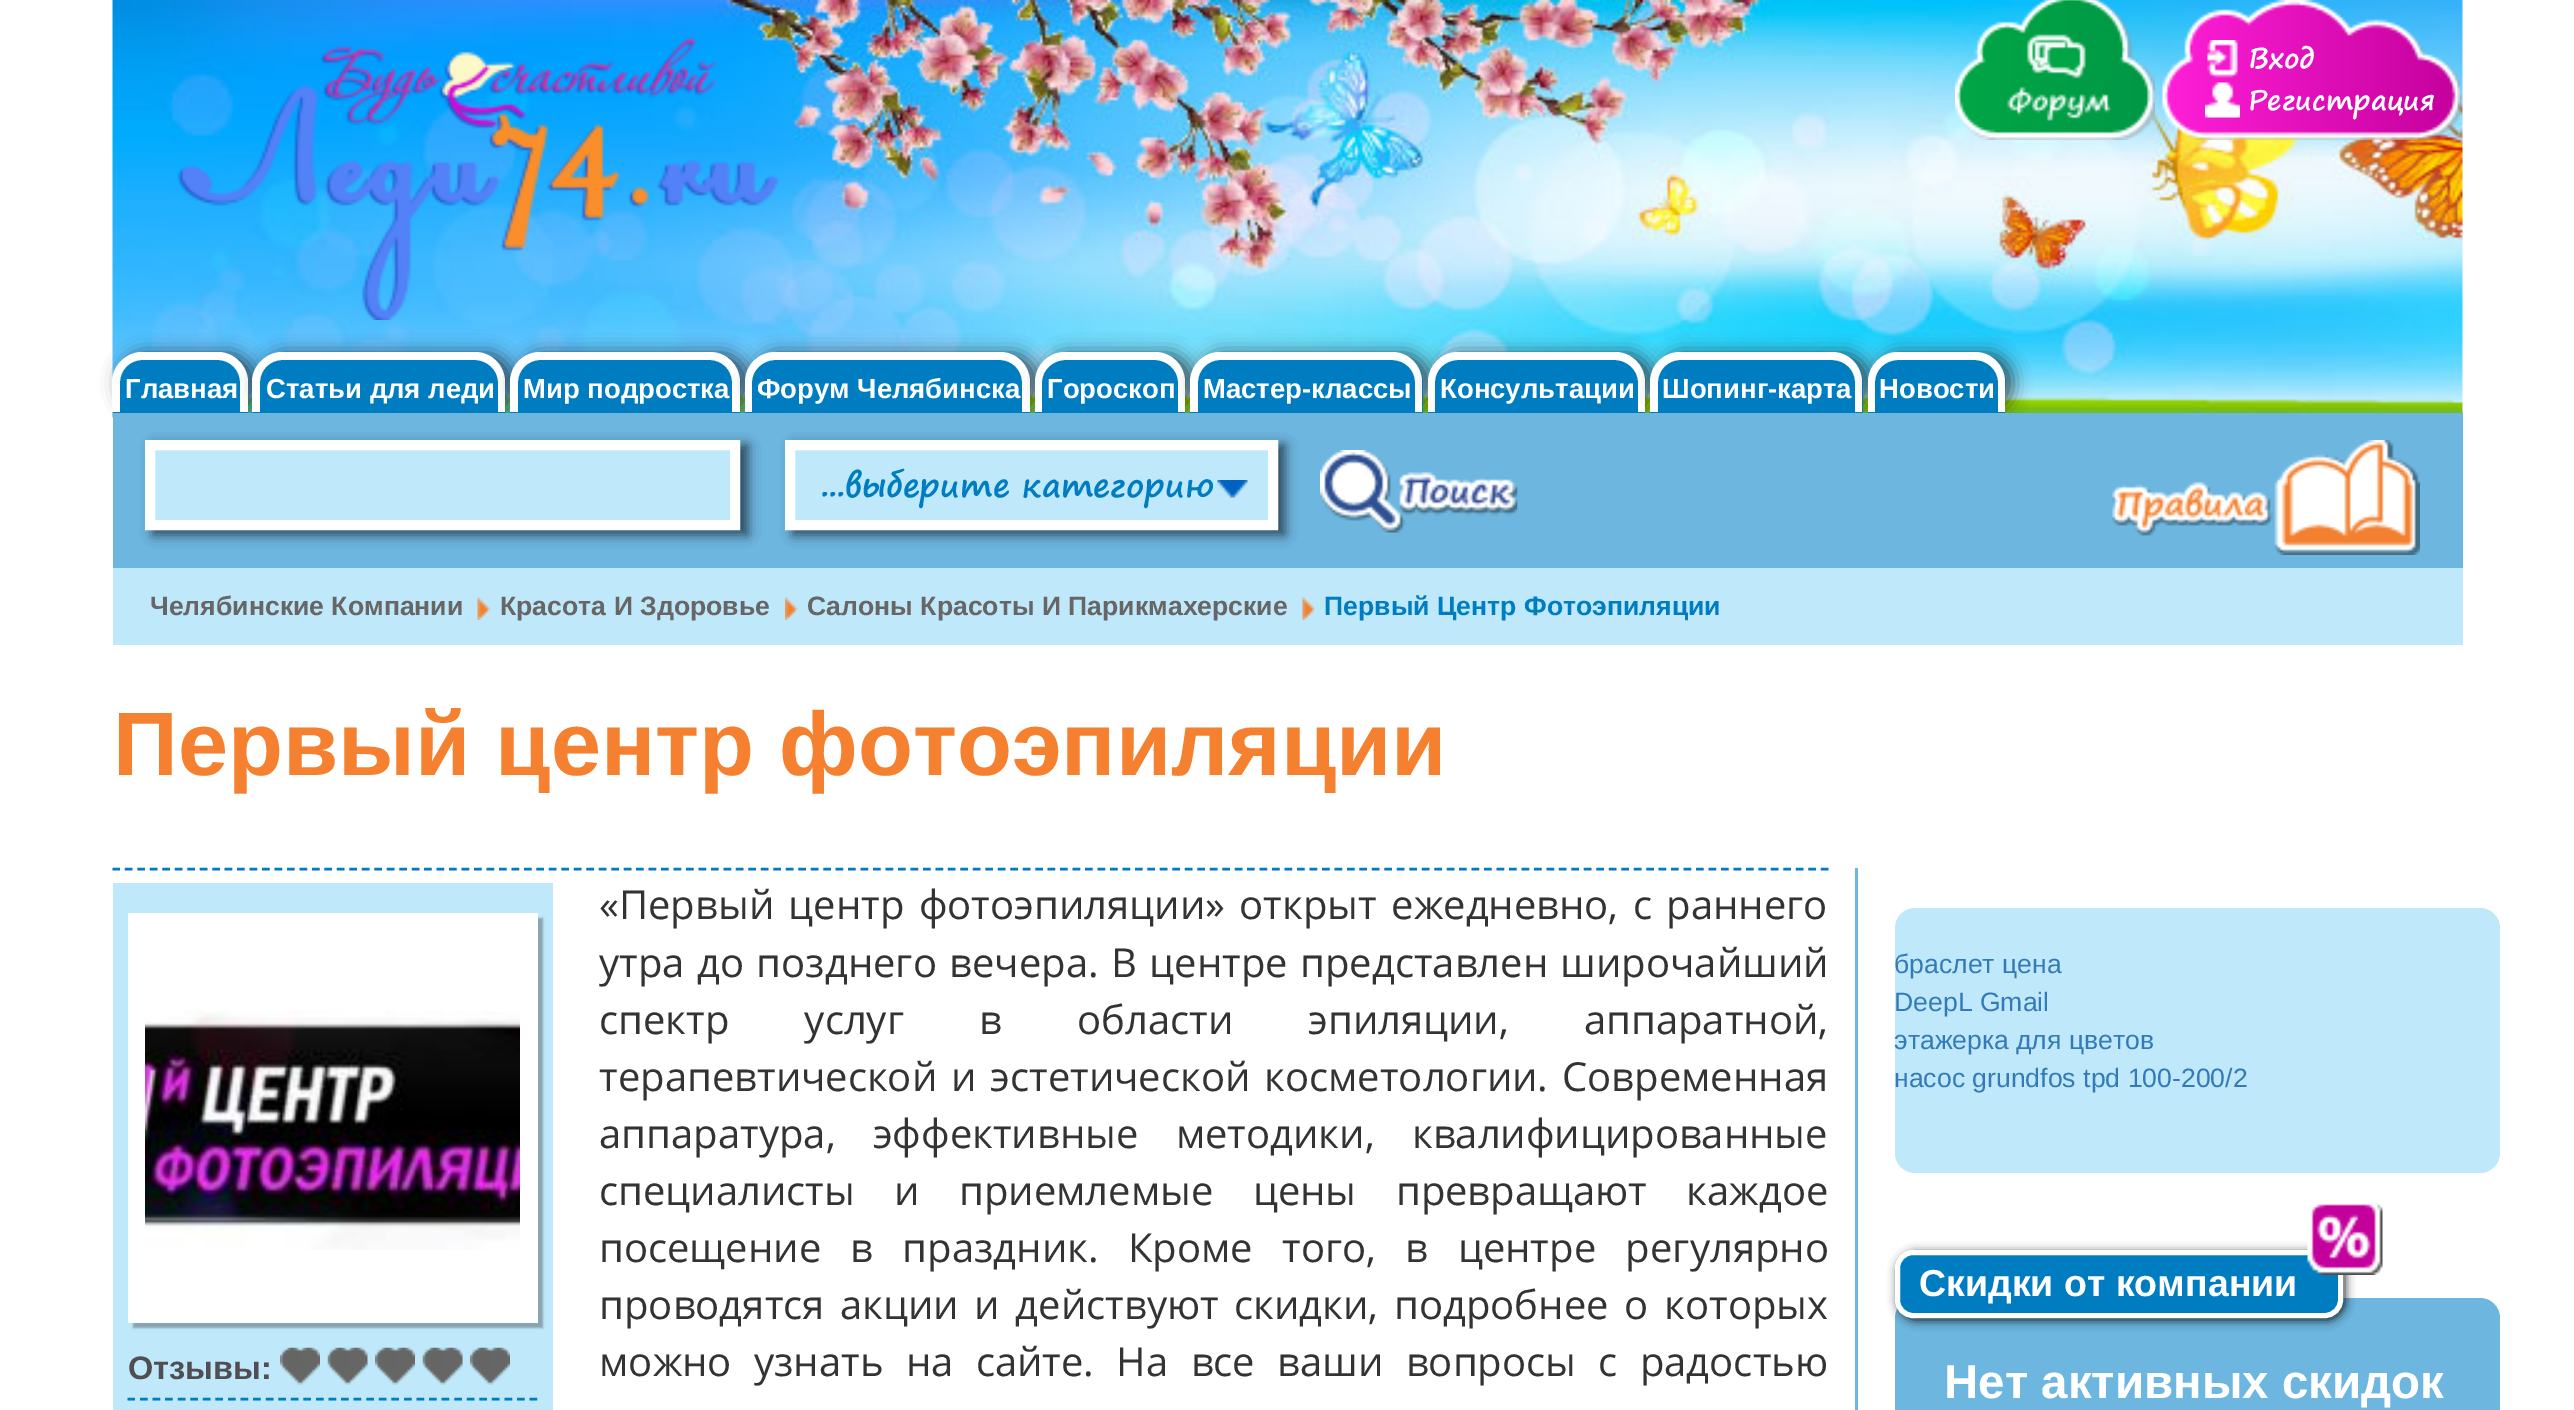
%!PS-Adobe-3.0
%%BoundingBox: 0 0 2574 1410
%%LanguageLevel: 3
%%Pages: 1
%%EndComments
%%BeginProlog
/setalpha { dup .setfillconstantalpha .setstrokeconstantalpha } def
/rrect { 5 dict begin { /r /h /w /y /x } { exch def } forall
  x r add y moveto x w add y 2 copy h add r arct x w add y h add x 1 index r arct
  x y h add x y r arct x y 2 copy exch w add exch r arct closepath end } def
/softshadow { 12 dict begin { /a /b /q /h /w /y /x } { exch def } forall gsave /was 0 def
  9 -2 -9 { dup b mul 4 div /e exch def 1 sub .425 mul 2.718 exch exp 1 add a .99 .min exch div /now exch def
    1 1 now sub 1 was sub div sub setalpha /was now def
    w h .min e 2 mul add 0 gt { x e sub y e sub w e 2 mul add h e 2 mul add
      q e add b .6 mul add w h .min 2 div e add .min 0 .max rrect fill } if } for grestore end } def
/drawimage { 5 dict begin { /h /w /y /x /name } { exch def } forall
  gsave x y translate w h scale
  w h 8 [w 0 0 h 0 0] name (r) file false 3 colorimage grestore end } def
%%EndProlog
%%BeginSetup
<< /PageSize [2574 1410] /PageUsesTransparency true >> setpagedevice
%%EndSetup
%%Page: 1 1
0 .pushpdf14devicefilter
0 1410 translate 1 -1 scale
4 setmiterlimit
1 setgray
0 0 2574 1410 rectfill
(images/1.raw) 112 0 2351 418 drawimage
(images/2.raw) 177 37 602 283 drawimage
(images/3.raw) 1955 0 200 140 drawimage
(images/4.raw) 2162 0 298 140 drawimage
(images/5.raw) 2207 40 31 38 drawimage
(images/6.raw) 2205 82 35 36 drawimage
0 setgray
120 353 135 60 30 9 0.6 softshadow
0 0.49 0.757 setrgbcolor
newpath 143 353 moveto 218 353 lineto 234.5 353 248 366.5 248 383 curveto 248 413 lineto 113 413 lineto 113 383 lineto 113 366.5 126.5 353 143 353 curveto closepath fill
1 setgray
newpath 142 352 moveto 218 352 lineto 234 352 248 366 248 382 curveto 248 412 lineto 112 412 lineto 112 382 lineto 112 366 126 352 142 352 curveto closepath 142 360 moveto 218 360 lineto 230 360 240 370 240 382 curveto 240 412 lineto 120 412 lineto 120 382 lineto 120 370 130 360 142 360 curveto closepath eofill
0 setgray
260 353 253 60 30 9 0.6 softshadow
0 0.49 0.757 setrgbcolor
newpath 283 353 moveto 475 353 lineto 491.5 353 505 366.5 505 383 curveto 505 413 lineto 253 413 lineto 253 383 lineto 253 366.5 266.5 353 283 353 curveto closepath fill
1 setgray
newpath 282 352 moveto 475 352 lineto 492 352 505 366 505 382 curveto 505 412 lineto 252 412 lineto 252 382 lineto 252 366 266 352 282 352 curveto closepath 282 360 moveto 475 360 lineto 487 360 498 370 498 382 curveto 498 412 lineto 260 412 lineto 260 382 lineto 260 370 270 360 282 360 curveto closepath eofill
0 setgray
518 353 230 60 30 9 0.6 softshadow
0 0.49 0.757 setrgbcolor
newpath 540 353 moveto 710 353 lineto 726.5 353 740 366.5 740 383 curveto 740 413 lineto 510 413 lineto 510 383 lineto 510 366.5 523.5 353 540 353 curveto closepath fill
1 setgray
newpath 540 352 moveto 710 352 lineto 727 352 740 366 740 382 curveto 740 412 lineto 510 412 lineto 510 382 lineto 510 366 523 352 540 352 curveto closepath 540 360 moveto 710 360 lineto 722 360 732 370 732 382 curveto 732 412 lineto 518 412 lineto 518 382 lineto 518 370 528 360 540 360 curveto closepath eofill
0 setgray
753 353 285 60 30 9 0.6 softshadow
0 0.49 0.757 setrgbcolor
newpath 775 353 moveto 1000 353 lineto 1016.5 353 1030 366.5 1030 383 curveto 1030 413 lineto 745 413 lineto 745 383 lineto 745 366.5 758.5 353 775 353 curveto closepath fill
1 setgray
newpath 775 352 moveto 1000 352 lineto 1017 352 1030 366 1030 382 curveto 1030 412 lineto 745 412 lineto 745 382 lineto 745 366 758 352 775 352 curveto closepath 775 360 moveto 1000 360 lineto 1012 360 1022 370 1022 382 curveto 1022 412 lineto 752 412 lineto 752 382 lineto 752 370 763 360 775 360 curveto closepath eofill
0 setgray
1043 353 150 60 30 9 0.6 softshadow
0 0.49 0.757 setrgbcolor
newpath 1065 353 moveto 1155 353 lineto 1171.5 353 1185 366.5 1185 383 curveto 1185 413 lineto 1035 413 lineto 1035 383 lineto 1035 366.5 1048.5 353 1065 353 curveto closepath fill
1 setgray
newpath 1065 352 moveto 1155 352 lineto 1172 352 1185 366 1185 382 curveto 1185 412 lineto 1035 412 lineto 1035 382 lineto 1035 366 1048 352 1065 352 curveto closepath 1065 360 moveto 1155 360 lineto 1167 360 1178 370 1178 382 curveto 1178 412 lineto 1042 412 lineto 1042 382 lineto 1042 370 1053 360 1065 360 curveto closepath eofill
0 setgray
1198 353 232 60 30 9 0.6 softshadow
0 0.49 0.757 setrgbcolor
newpath 1220 353 moveto 1393 353 lineto 1409.5 353 1423 366.5 1423 383 curveto 1423 413 lineto 1190 413 lineto 1190 383 lineto 1190 366.5 1203.5 353 1220 353 curveto closepath fill
1 setgray
newpath 1220 352 moveto 1392 352 lineto 1409 352 1422 366 1422 382 curveto 1422 412 lineto 1190 412 lineto 1190 382 lineto 1190 366 1203 352 1220 352 curveto closepath 1220 360 moveto 1392 360 lineto 1405 360 1415 370 1415 382 curveto 1415 412 lineto 1198 412 lineto 1198 382 lineto 1198 370 1208 360 1220 360 curveto closepath eofill
0 setgray
1435 353 218 60 30 9 0.6 softshadow
0 0.49 0.757 setrgbcolor
newpath 1458 353 moveto 1615 353 lineto 1631.5 353 1645 366.5 1645 383 curveto 1645 413 lineto 1428 413 lineto 1428 383 lineto 1428 366.5 1441.5 353 1458 353 curveto closepath fill
1 setgray
newpath 1458 352 moveto 1615 352 lineto 1632 352 1645 366 1645 382 curveto 1645 412 lineto 1428 412 lineto 1428 382 lineto 1428 366 1441 352 1458 352 curveto closepath 1458 360 moveto 1615 360 lineto 1627 360 1638 370 1638 382 curveto 1638 412 lineto 1435 412 lineto 1435 382 lineto 1435 370 1445 360 1458 360 curveto closepath eofill
0 setgray
1658 353 212 60 30 9 0.6 softshadow
0 0.49 0.757 setrgbcolor
newpath 1680 353 moveto 1833 353 lineto 1849.5 353 1863 366.5 1863 383 curveto 1863 413 lineto 1650 413 lineto 1650 383 lineto 1650 366.5 1663.5 353 1680 353 curveto closepath fill
1 setgray
newpath 1680 352 moveto 1832 352 lineto 1849 352 1862 366 1862 382 curveto 1862 412 lineto 1650 412 lineto 1650 382 lineto 1650 366 1663 352 1680 352 curveto closepath 1680 360 moveto 1832 360 lineto 1845 360 1855 370 1855 382 curveto 1855 412 lineto 1658 412 lineto 1658 382 lineto 1658 370 1668 360 1680 360 curveto closepath eofill
0 setgray
1875 353 138 60 30 9 0.6 softshadow
0 0.49 0.757 setrgbcolor
newpath 1898 353 moveto 1975 353 lineto 1991.5 353 2005 366.5 2005 383 curveto 2005 413 lineto 1868 413 lineto 1868 383 lineto 1868 366.5 1881.5 353 1898 353 curveto closepath fill
1 setgray
newpath 1898 352 moveto 1975 352 lineto 1992 352 2005 366 2005 382 curveto 2005 412 lineto 1868 412 lineto 1868 382 lineto 1868 366 1881 352 1898 352 curveto closepath 1898 360 moveto 1975 360 lineto 1987 360 1998 370 1998 382 curveto 1998 412 lineto 1875 412 lineto 1875 382 lineto 1875 370 1885 360 1898 360 curveto closepath eofill
0.424 0.714 0.875 setrgbcolor
113 413 2350 155 rectfill
0 setgray
153 445 595 90 0 6 0.6 softshadow
0.749 0.914 0.98 setrgbcolor
newpath 150 445 moveto 735 445 lineto 735 525 lineto 150 525 lineto closepath gsave fill grestore
1 setgray
10 setlinewidth
stroke
0 setgray
793 445 492 90 0 6 0.6 softshadow
0.749 0.914 0.98 setrgbcolor
795 450 473 70 rectfill
(images/7.raw) 1217 480 31 18 drawimage
1 setgray
790 445 483 80 rectstroke
(images/8.raw) 1320 450 198 83 drawimage
(images/9.raw) 2112 440 308 115 drawimage
0.749 0.914 0.98 setrgbcolor
113 568 2350 77 rectfill
(images/10.raw) 477 597 13 23 drawimage
(images/11.raw) 785 597 13 23 drawimage
(images/10.raw) 1302 597 13 23 drawimage
0.424 0.714 0.875 setrgbcolor
1855 868 3 542 rectfill
0 0.49 0.757 setrgbcolor
2.5 setlinewidth
[7.5 4.97] 0 setdash
newpath 112.5 869 moveto 1830 869 lineto stroke
0.749 0.914 0.98 setrgbcolor
113 883 440 527 rectfill
0 setgray
133 918 410 410 0 1 0.3 softshadow
1 setgray
128 913 410 410 rectfill
(images/12.raw) 145 1010 375 240 drawimage
(images/13.raw) 280 1347 40 38 drawimage
(images/14.raw) 327 1347 41 38 drawimage
(images/15.raw) 375 1347 40 38 drawimage
(images/14.raw) 422 1347 41 38 drawimage
(images/16.raw) 470 1347 40 38 drawimage
0 0.49 0.757 setrgbcolor
[7.5 5.07] 0 setdash
newpath 127.5 1399 moveto 537.5 1399 lineto stroke
0.749 0.914 0.98 setrgbcolor
1895 908 605 265 20 rrect fill
0.424 0.714 0.875 setrgbcolor
1895 1298 605 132 20 rrect fill
0 setgray
1898 1253 447 67 18 5 0.9 softshadow
0 0.49 0.757 setrgbcolor
1897.5 1252.5 443 63 15.5 rrect gsave fill grestore
1 setgray
5 setlinewidth
[] 0 setdash
stroke
(images/17.raw) 2307 1202 76 73 drawimage
/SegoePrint-Bold [27.5 0 0 -27.5 0 0] selectfont
2248 68 moveto (Вход) show
2248 110 moveto (Регистрация) show
/LiberationSans-Bold [27.5 0 0 -27.5 0 0] selectfont
125 398 moveto (Главная) show
266 398 moveto (Статьи для леди) show
523 398 moveto (Мир подростка) show
757 398 moveto (Форум Челябинска) show
1047 398 moveto (Гороскоп) show
1203 398 moveto (Мастер-классы) show
1440 398 moveto (Консультации) show
1662 398 moveto (Шопинг-карта) show
1879 398 moveto (Новости) show
/SegoePrint-Bold [32.5 0 0 -32.5 0 0] selectfont
0 0.49 0.757 setrgbcolor
821 497 moveto (...выберите категорию) show
/LiberationSans-Bold [26.6 0 0 -26.6 0 0] selectfont
0.404 0.396 0.4 setrgbcolor
150 615 moveto (Челябинские Компании) show
500 615 moveto (Красота И Здоровье) show
807 615 moveto (Салоны Красоты И Парикмахерские) show
0 0.49 0.757 setrgbcolor
1324 615 moveto (Первый Центр Фотоэпиляции) show
/LiberationSans-Bold [90 0 0 -90 0 0] selectfont
0.961 0.502 0.188 setrgbcolor
113 775 moveto (Первый центр фотоэпиляции) show
/LiberationSans-Bold [32.5 0 0 -32.5 0 0] selectfont
0.314 0.306 0.318 setrgbcolor
128 1379 moveto (Отзывы:) show
/OpenSans-Regular [40 0 0 -40 0 0] selectfont
0.2 setgray
599 919 moveto 4 0 32 («Первый центр фотоэпиляции» открыт ежедневно, с раннего) widthshow
599 977 moveto 2 0 32 (утра до позднего вечера. В центре представлен широчайший) widthshow
599 1034 moveto 64.75 0 32 (спектр услуг в области эпиляции, аппаратной,) widthshow
599 1091 moveto 3.5 0 32 (терапевтической и эстетической косметологии. Современная) widthshow
599 1148 moveto 27 0 32 (аппаратура, эффективные методики, квалифицированные) widthshow
599 1205 moveto 29 0 32 (специалисты и приемлемые цены превращают каждое) widthshow
599 1262 moveto 19 0 32 (посещение в праздник. Кроме того, в центре регулярно) widthshow
599 1319 moveto 5.25 0 32 (проводятся акции и действуют скидки, подробнее о которых) widthshow
599 1376 moveto 12 0 32 (можно узнать на сайте. На все ваши вопросы с радостью) widthshow
/LiberationSans-Regular [26.6 0 0 -26.6 0 0] selectfont
0.2 0.478 0.718 setrgbcolor
1894 973 moveto (браслет цена) show
1894 1011 moveto (DeepL Gmail) show
1894 1049 moveto (этажерка для цветов) show
1894 1087 moveto (насос grundfos tpd 100-200/2) show
/LiberationSans-Bold [37.5 0 0 -37.5 0 0] selectfont
1 setgray
1919 1296 moveto (Скидки от компании) show
/LiberationSans-Bold [47.5 0 0 -47.5 0 0] selectfont
1944 1398 moveto (Нет активных скидок) show
.poppdf14devicefilter showpage
%%EOF
